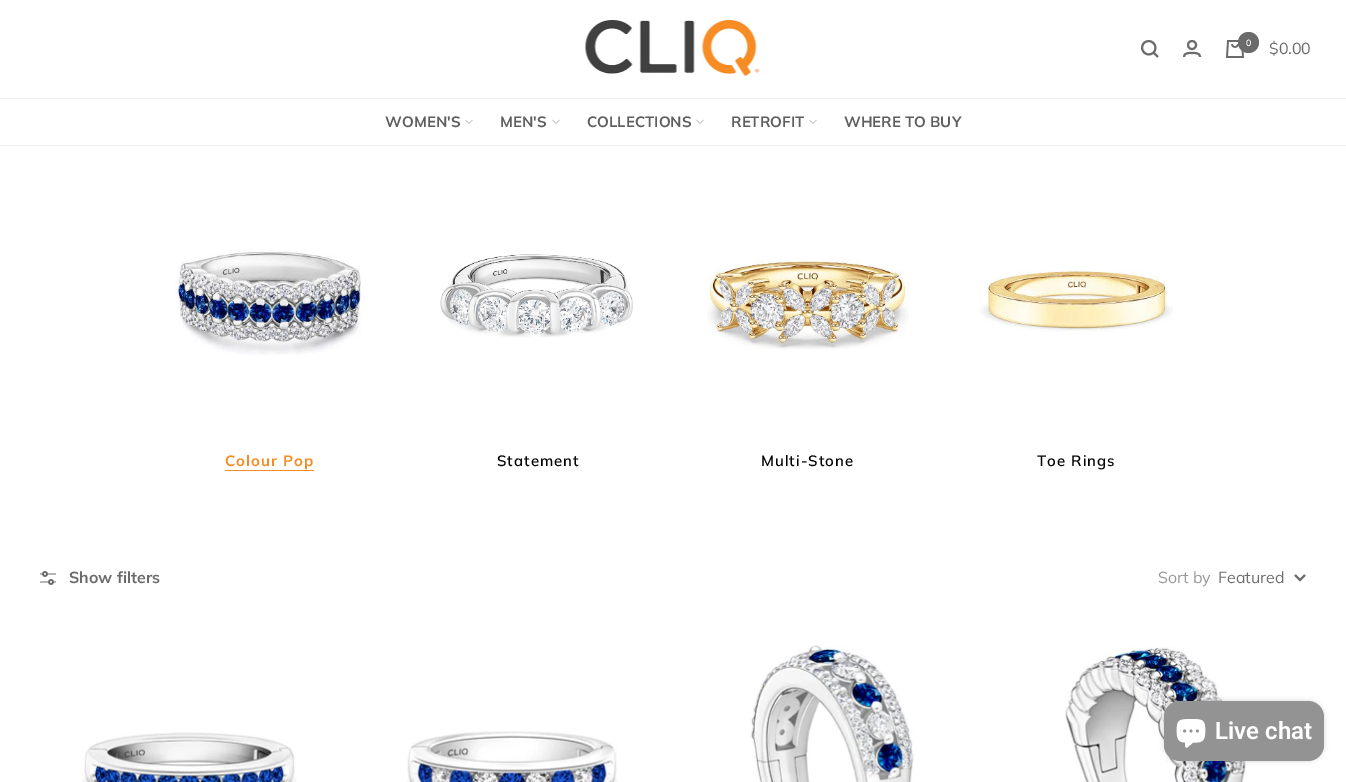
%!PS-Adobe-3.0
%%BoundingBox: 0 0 1346 782
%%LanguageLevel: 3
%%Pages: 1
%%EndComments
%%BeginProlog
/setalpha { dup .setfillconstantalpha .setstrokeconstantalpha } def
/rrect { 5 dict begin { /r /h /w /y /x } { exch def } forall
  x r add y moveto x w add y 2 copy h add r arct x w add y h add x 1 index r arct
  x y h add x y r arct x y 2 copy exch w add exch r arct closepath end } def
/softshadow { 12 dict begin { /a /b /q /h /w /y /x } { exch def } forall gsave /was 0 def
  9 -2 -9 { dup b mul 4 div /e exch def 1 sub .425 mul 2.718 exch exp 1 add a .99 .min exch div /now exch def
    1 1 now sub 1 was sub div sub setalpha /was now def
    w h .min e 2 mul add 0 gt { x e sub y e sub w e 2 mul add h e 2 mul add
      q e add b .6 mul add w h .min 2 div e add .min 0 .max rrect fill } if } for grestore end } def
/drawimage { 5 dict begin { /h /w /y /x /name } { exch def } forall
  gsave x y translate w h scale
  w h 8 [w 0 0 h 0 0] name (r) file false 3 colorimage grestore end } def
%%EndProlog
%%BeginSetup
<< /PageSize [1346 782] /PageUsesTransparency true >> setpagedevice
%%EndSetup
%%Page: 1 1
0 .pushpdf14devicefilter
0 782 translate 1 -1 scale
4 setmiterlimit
1 setgray
0 0 1346 782 rectfill
(images/1.raw) 585 20 176 56 drawimage
0.42 setgray
2 setlinewidth
newpath 1153.5 52.5 moveto 1159.5 46 1150.5 37 1144 43 curveto 1138 49.5 1147 58.5 1153.5 52.5 curveto closepath 1153.5 52.5 moveto 1158 57 lineto stroke
newpath 1192 45 4 0 360 arc closepath stroke
newpath 1184 57 moveto 1184 52.5 1189 53 1192 53 curveto 1195 53 1200 52.5 1200 57 curveto stroke
(images/2.raw) 1225 40 20 18 drawimage
newpath 1248.5 42.5 10.5 0 360 arc closepath fill
0.933 setgray
0 98 1346 1 rectfill
0 145 1346 1 rectfill
0.733 setgray
0.7 setlinewidth
newpath 465.5 120 moveto 469 123.5 lineto 472.5 120 lineto stroke
newpath 552.5 120 moveto 556 123.5 lineto 559.5 120 lineto stroke
newpath 696.5 120 moveto 700 123.5 lineto 703.5 120 lineto stroke
newpath 809.5 120 moveto 813 123.5 lineto 816.5 120 lineto stroke
(images/3.raw) 175 249 190 106 drawimage
0.961 0.549 0.137 setrgbcolor
225 470 89 1 rectfill
(images/4.raw) 440 254 193 84 drawimage
(images/5.raw) 707 259 202 91 drawimage
(images/6.raw) 980 270 193 62 drawimage
(images/7.raw) 40 571 16 14 drawimage
0.42 setgray
2 setlinewidth
newpath 1295 575 moveto 1300 580 lineto 1305 575 lineto stroke
(images/8.raw) 82 732 215 50 drawimage
(images/9.raw) 407 731 211 51 drawimage
(images/10.raw) 749 645 167 137 drawimage
(images/11.raw) 1065 647 181 135 drawimage
0 setgray
1164 701 160 60 16 2.5 0.15 softshadow
0.576 setgray
1164 701 160 60 16 rrect fill
(images/12.raw) 1176 719 30 29 drawimage
/Muli-SemiBold [9 0 0 -9 0 0] selectfont
1 setgray
1246 46 moveto (0) show
/Muli-Regular [16 0 0 -16 0 0] selectfont
0.42 setgray
1269 54 moveto ($0.00) show
/Muli-Bold [15 0 0 -15 0 0] selectfont
0.373 setgray
385 127 moveto (WOMEN'S) show
500 127 moveto (MEN'S) show
587 127 moveto (COLLECTIONS) show
731 127 moveto (RETROFIT) show
844 127 moveto (WHERE TO BUY) show
0.961 0.549 0.137 setrgbcolor
225 466 moveto 1 0 (Colour Pop) ashow
/Muli-SemiBold [15 0 0 -15 0 0] selectfont
0 setgray
497 466 moveto 1 0 (Statement) ashow
761 466 moveto 1 0 (Multi-Stone) ashow
1037 466 moveto 1 0 (Toe Rings) ashow
/Muli-Bold [16 0 0 -16 0 0] selectfont
0.42 setgray
69 583 moveto (Show filters) show
/Muli-Regular [16 0 0 -16 0 0] selectfont
0.592 setgray
1158 583 moveto (Sort by) show
0.42 setgray
1218 583 moveto (Featured) show
/Roboto-SemiBold [24 0 0 -24 0 0] selectfont
1 setgray
1215 739 moveto (Live chat) show
.poppdf14devicefilter showpage
%%EOF
